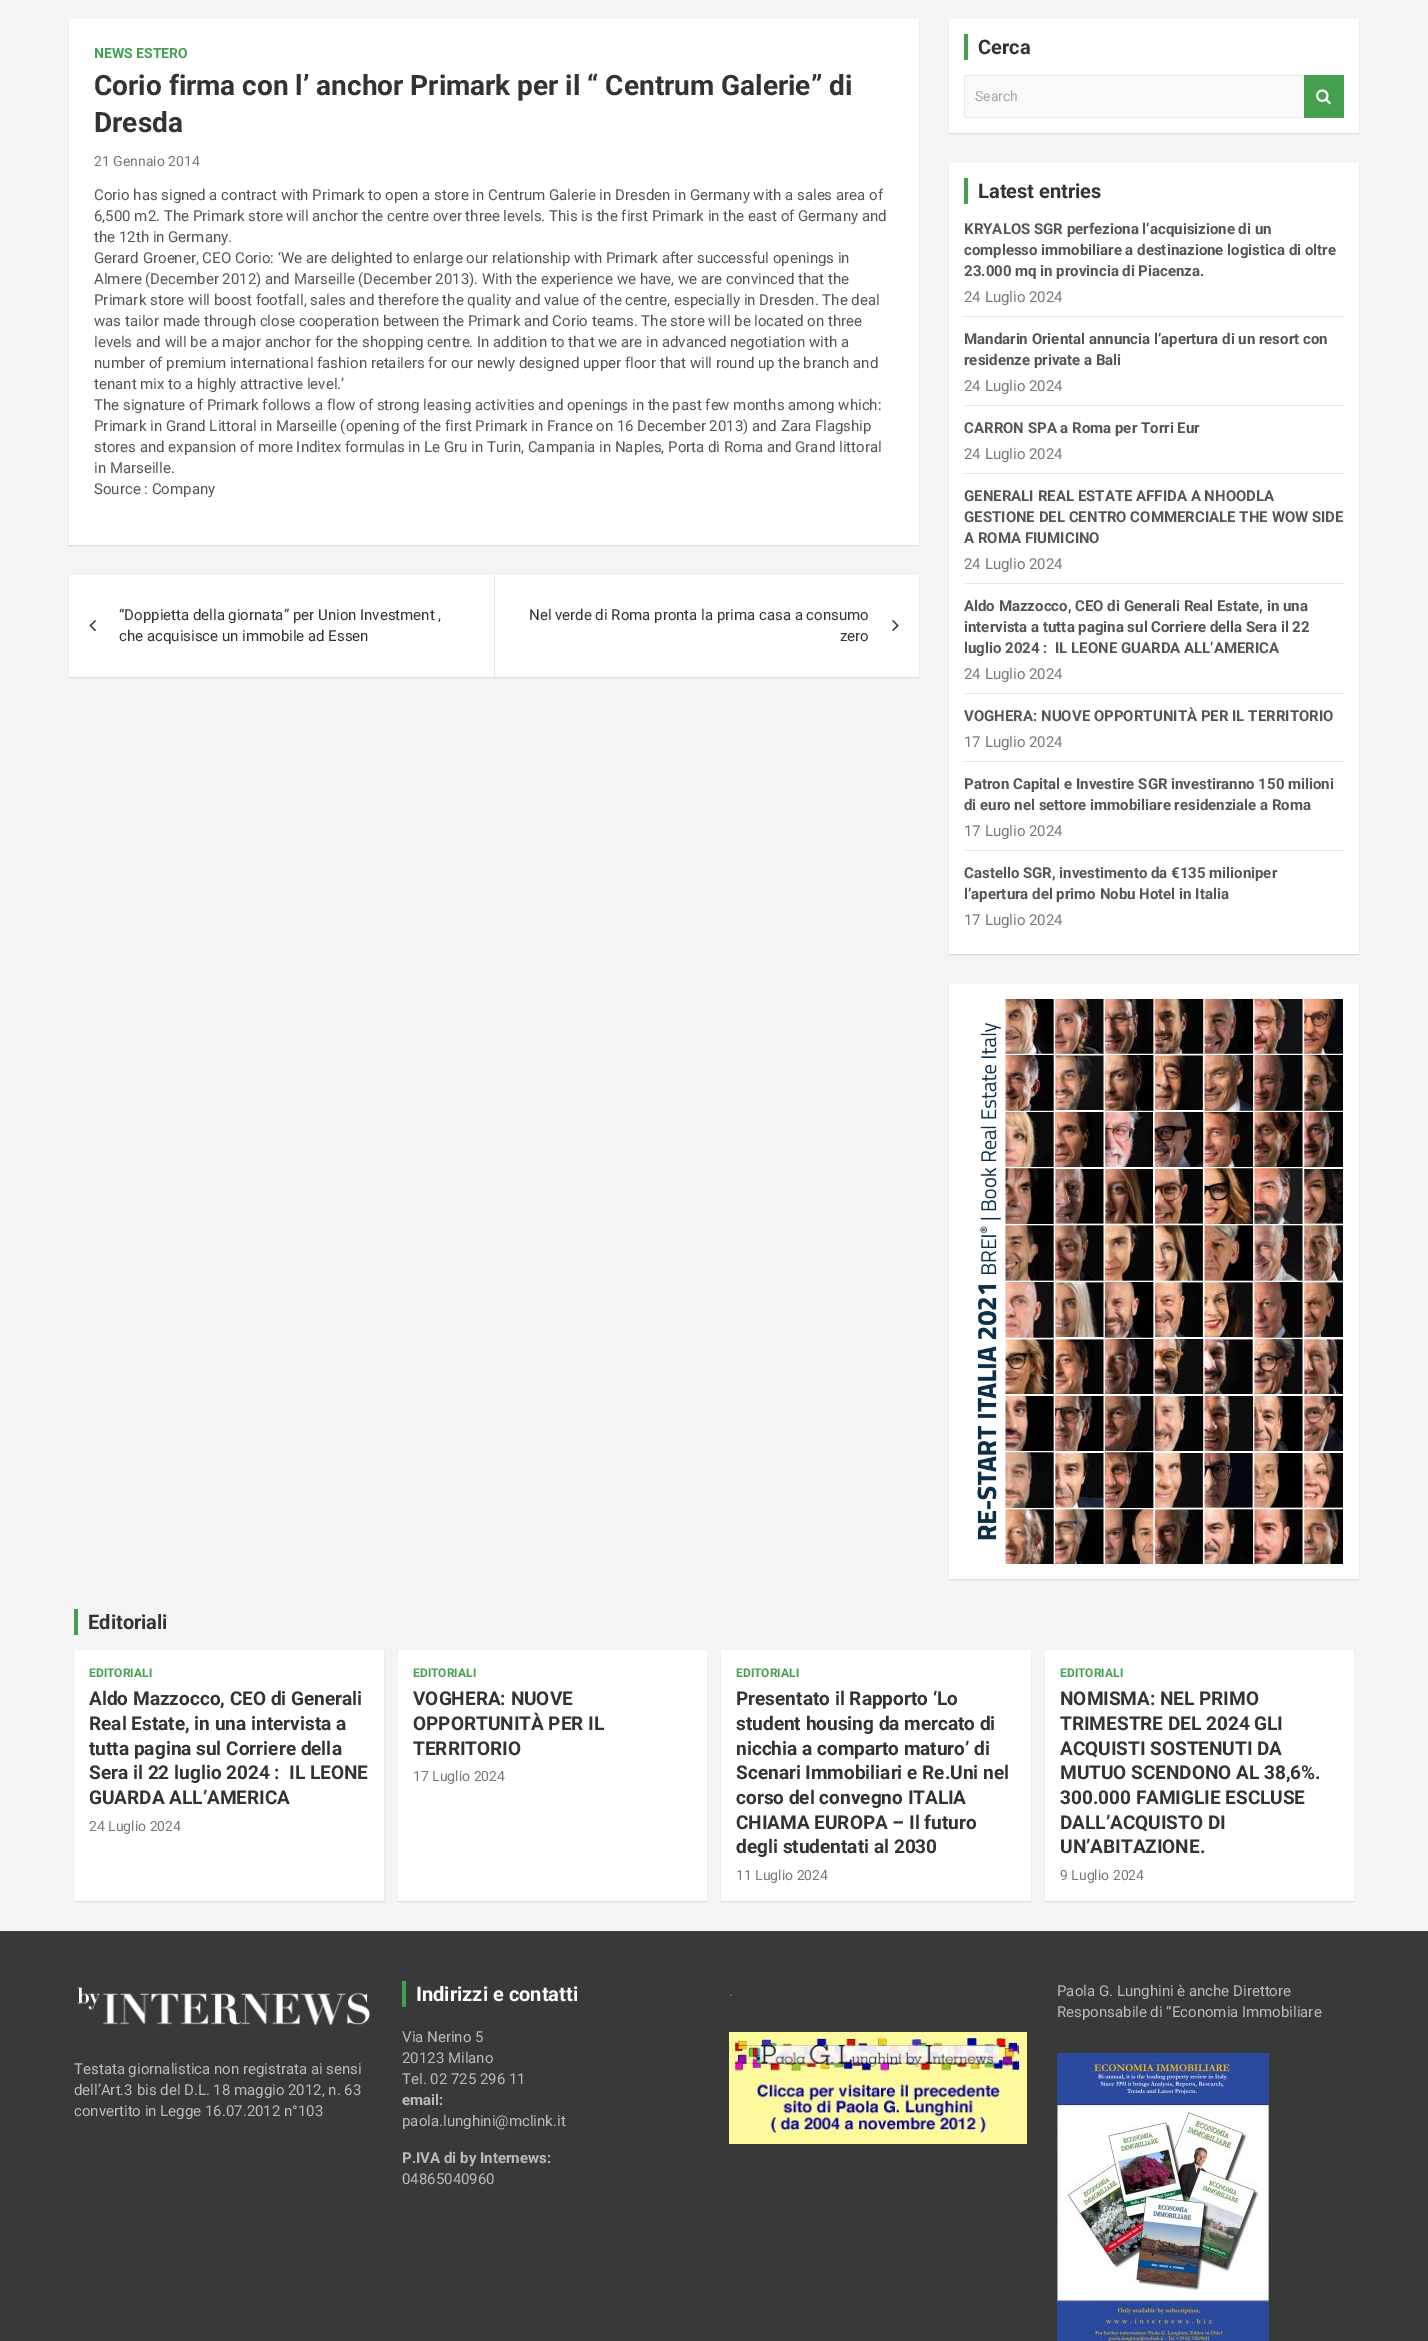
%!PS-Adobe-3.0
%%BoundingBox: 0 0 1428 2341
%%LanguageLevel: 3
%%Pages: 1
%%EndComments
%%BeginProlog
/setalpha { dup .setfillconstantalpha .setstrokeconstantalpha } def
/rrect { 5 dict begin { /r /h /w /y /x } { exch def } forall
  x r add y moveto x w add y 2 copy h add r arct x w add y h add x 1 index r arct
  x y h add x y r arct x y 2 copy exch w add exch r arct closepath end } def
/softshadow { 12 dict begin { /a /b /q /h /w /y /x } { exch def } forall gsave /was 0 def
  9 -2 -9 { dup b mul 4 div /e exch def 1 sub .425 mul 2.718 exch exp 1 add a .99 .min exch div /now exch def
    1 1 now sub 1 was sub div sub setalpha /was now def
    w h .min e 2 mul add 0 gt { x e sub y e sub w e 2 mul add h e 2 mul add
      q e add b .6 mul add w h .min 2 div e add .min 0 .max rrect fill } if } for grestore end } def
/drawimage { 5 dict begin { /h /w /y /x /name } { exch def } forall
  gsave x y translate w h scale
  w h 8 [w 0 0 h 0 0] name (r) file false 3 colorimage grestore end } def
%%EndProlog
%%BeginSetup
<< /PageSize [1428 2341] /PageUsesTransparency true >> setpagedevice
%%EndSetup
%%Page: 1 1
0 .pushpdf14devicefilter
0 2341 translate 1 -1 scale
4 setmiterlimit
0.957 setgray
0 0 1428 2341 rectfill
0 setgray
69 20 850 526 0 0.5 0.1 softshadow
1 setgray
69 19 850 526 rectfill
0 setgray
69 576 850 102 0 0.5 0.1 softshadow
1 setgray
69 575 850 102 rectfill
(images/1.raw) 89 620 7 12 drawimage
0.902 setgray
494 575 1 102 rectfill
(images/2.raw) 892 620 7 12 drawimage
0 setgray
949 20 410 114 0 0.5 0.1 softshadow
1 setgray
949 19 410 114 rectfill
0.263 0.627 0.31 setrgbcolor
964 34 4 26 rectfill
0.976 setgray
965 76 339 41 rectfill
0.91 setgray
newpath 964 75 moveto 1304 75 lineto 1304 76 lineto 965 76 lineto closepath fill
newpath 1304 118 moveto 964 118 lineto 965 117 lineto 1304 117 lineto closepath fill
0.09 setalpha
0 setgray
newpath 964 118 moveto 964 75 lineto 965 76 lineto 965 117 lineto closepath fill
1 setalpha
0.263 0.627 0.31 setrgbcolor
1304 75 40 43 rectfill
(images/3.raw) 1316 89 15 16 drawimage
0 setgray
949 164 410 791 0 0.5 0.1 softshadow
1 setgray
949 163 410 791 rectfill
0.263 0.627 0.31 setrgbcolor
964 178 4 26 rectfill
0.902 setgray
964 316 380 1 rectfill
964 405 380 1 rectfill
964 473 380 1 rectfill
964 583 380 1 rectfill
964 693 380 1 rectfill
964 761 380 1 rectfill
964 850 380 1 rectfill
0 setgray
949 985 410 595 0 0.5 0.1 softshadow
1 setgray
949 984 410 595 rectfill
(images/4.raw) 964 999 379 565 drawimage
0.263 0.627 0.31 setrgbcolor
74 1609 4 26 rectfill
0 setgray
74 1651 310 251 0 0.5 0.1 softshadow
1 setgray
74 1650 310 251 rectfill
0 setgray
398 1651 309 251 0 0.5 0.1 softshadow
1 setgray
398 1650 309 251 rectfill
0 setgray
721 1651 310 251 0 0.5 0.1 softshadow
1 setgray
721 1650 310 251 rectfill
0 setgray
1045 1651 309 251 0 0.5 0.1 softshadow
1 setgray
1045 1650 309 251 rectfill
0.224 setgray
0 1931 1428 410 rectfill
0.263 0.627 0.31 setrgbcolor
402 1981 4 26 rectfill
(images/5.raw) 729 2032 298 112 drawimage
(images/6.raw) 1057 2053 212 288 drawimage
(images/7.raw) 77 1987 294 39 drawimage
/Roboto-Bold [14 0 0 -14 0 0] selectfont
94 58 moveto (NEWS ESTERO) show
/Roboto-Bold [28 0 0 -28 0 0] selectfont
0.2 setgray
94 95 moveto (Corio firma con l’ anchor Primark per il “ Centrum Galerie” di) show
94 132 moveto (Dresda) show
/Roboto-Regular [14 0 0 -14 0 0] selectfont
0.467 setgray
94 166 moveto (21 Gennaio 2014) show
/Roboto-Regular [15 0 0 -15 0 0] selectfont
0.333 setgray
94 200 moveto (Corio has signed a contract with Primark to open a store in Centrum Galerie in Dresden in Germany with a sales area of) show
94 221 moveto (6,500 m2. The Primark store will anchor the centre over three levels. This is the first Primark in the east of Germany and) show
94 242 moveto (the 12th in Germany.) show
94 263 moveto (Gerard Groener, CEO Corio: ‘We are delighted to enlarge our relationship with Primark after successful openings in) show
94 284 moveto (Almere \(December 2012\) and Marseille \(December 2013\). With the experience we have, we are convinced that the) show
94 305 moveto (Primark store will boost footfall, sales and therefore the quality and value of the centre, especially in Dresden. The deal) show
94 326 moveto (was tailor made through close cooperation between the Primark and Corio teams. The store will be located on three) show
94 347 moveto (levels and will be a major anchor for the shopping centre. In addition to that we are in advanced negotiation with a) show
94 368 moveto (number of premium international fashion retailers for our newly designed upper floor that will round up the branch and) show
94 389 moveto (tenant mix to a highly attractive level.’) show
94 410 moveto (The signature of Primark follows a flow of strong leasing activities and openings in the past few months among which:) show
94 431 moveto (Primark in Grand Littoral in Marseille \(opening of the first Primark in France on 16 December 2013\) and Zara Flagship) show
94 452 moveto (stores and expansion of more Inditex formulas in Le Gru in Turin, Campania in Naples, Porta di Roma and Grand littoral) show
94 473 moveto (in Marseille.) show
94 494 moveto (Source : Company) show
0.2 setgray
119 620 moveto (“Doppietta della giornata” per Union Investment ,) show
119 641 moveto (che acquisisce un immobile ad Essen) show
529 620 moveto (Nel verde di Roma pronta la prima casa a consumo) show
840 641 moveto (zero) show
/Roboto-Bold [20 0 0 -20 0 0] selectfont
978 54 moveto (Cerca) show
/Roboto-Regular [14 0 0 -14 0 0] selectfont
0.655 setgray
975 101 moveto (Search) show
/Roboto-Bold [20 0 0 -20 0 0] selectfont
0.2 setgray
978 198 moveto (Latest entries) show
/Roboto-Bold [15 0 0 -15 0 0] selectfont
0.333 setgray
964 234 moveto (KRYALOS SGR perfeziona l’acquisizione di un) show
964 255 moveto (complesso immobiliare a destinazione logistica di oltre) show
964 276 moveto (23.000 mq in provincia di Piacenza.) show
/Roboto-Regular [15 0 0 -15 0 0] selectfont
0.467 setgray
964 302 moveto (24 Luglio 2024) show
/Roboto-Bold [15 0 0 -15 0 0] selectfont
0.333 setgray
964 344 moveto (Mandarin Oriental annuncia l’apertura di un resort con) show
964 365 moveto (residenze private a Bali) show
/Roboto-Regular [15 0 0 -15 0 0] selectfont
0.467 setgray
964 391 moveto (24 Luglio 2024) show
/Roboto-Bold [15 0 0 -15 0 0] selectfont
0.333 setgray
964 433 moveto (CARRON SPA a Roma per Torri Eur) show
/Roboto-Regular [15 0 0 -15 0 0] selectfont
0.467 setgray
964 459 moveto (24 Luglio 2024) show
/Roboto-Bold [15 0 0 -15 0 0] selectfont
0.333 setgray
964 501 moveto (GENERALI REAL ESTATE AFFIDA A NHOODLA) show
964 522 moveto (GESTIONE DEL CENTRO COMMERCIALE THE WOW SIDE) show
964 543 moveto (A ROMA FIUMICINO) show
/Roboto-Regular [15 0 0 -15 0 0] selectfont
0.467 setgray
964 569 moveto (24 Luglio 2024) show
/Roboto-Bold [15 0 0 -15 0 0] selectfont
0.333 setgray
964 611 moveto (Aldo Mazzocco, CEO di Generali Real Estate, in una) show
964 632 moveto (intervista a tutta pagina sul Corriere della Sera il 22) show
964 653 moveto (luglio 2024 :  IL LEONE GUARDA ALL’AMERICA) show
/Roboto-Regular [15 0 0 -15 0 0] selectfont
0.467 setgray
964 679 moveto (24 Luglio 2024) show
/Roboto-Bold [15 0 0 -15 0 0] selectfont
0.333 setgray
964 721 moveto (VOGHERA: NUOVE OPPORTUNITÀ PER IL TERRITORIO) show
/Roboto-Regular [15 0 0 -15 0 0] selectfont
0.467 setgray
964 747 moveto (17 Luglio 2024) show
/Roboto-Bold [15 0 0 -15 0 0] selectfont
0.333 setgray
964 789 moveto (Patron Capital e Investire SGR investiranno 150 milioni) show
964 810 moveto (di euro nel settore immobiliare residenziale a Roma) show
/Roboto-Regular [15 0 0 -15 0 0] selectfont
0.467 setgray
964 836 moveto (17 Luglio 2024) show
/Roboto-Bold [15 0 0 -15 0 0] selectfont
0.333 setgray
964 878 moveto (Castello SGR, investimento da €135 milioniper) show
964 899 moveto (l’apertura del primo Nobu Hotel in Italia) show
/Roboto-Regular [15 0 0 -15 0 0] selectfont
0.467 setgray
964 925 moveto (17 Luglio 2024) show
/Roboto-Bold [20 0 0 -20 0 0] selectfont
0.2 setgray
88 1629 moveto (Editoriali) show
/Roboto-Bold [12 0 0 -12 0 0] selectfont
0.263 0.627 0.31 setrgbcolor
89 1677 moveto (EDITORIALI) show
/Roboto-Bold [19 0 0 -19 0 0] selectfont
0.2 setgray
89 1705 moveto (Aldo Mazzocco, CEO di Generali) show
89 1730 moveto (Real Estate, in una intervista a) show
89 1755 moveto (tutta pagina sul Corriere della) show
89 1779 moveto (Sera il 22 luglio 2024 :  IL LEONE) show
89 1804 moveto (GUARDA ALL’AMERICA) show
/Roboto-Regular [14 0 0 -14 0 0] selectfont
0.467 setgray
89 1831 moveto (24 Luglio 2024) show
/Roboto-Bold [12 0 0 -12 0 0] selectfont
0.263 0.627 0.31 setrgbcolor
413 1677 moveto (EDITORIALI) show
/Roboto-Bold [19 0 0 -19 0 0] selectfont
0.2 setgray
413 1705 moveto (VOGHERA: NUOVE) show
413 1730 moveto (OPPORTUNITÀ PER IL) show
413 1755 moveto (TERRITORIO) show
/Roboto-Regular [14 0 0 -14 0 0] selectfont
0.467 setgray
413 1781 moveto (17 Luglio 2024) show
/Roboto-Bold [12 0 0 -12 0 0] selectfont
0.263 0.627 0.31 setrgbcolor
736 1677 moveto (EDITORIALI) show
/Roboto-Bold [19 0 0 -19 0 0] selectfont
0.2 setgray
736 1705 moveto (Presentato il Rapporto ‘Lo) show
736 1730 moveto (student housing da mercato di) show
736 1755 moveto (nicchia a comparto maturo’ di) show
736 1779 moveto (Scenari Immobiliari e Re.Uni nel) show
736 1804 moveto (corso del convegno ITALIA) show
736 1829 moveto (CHIAMA EUROPA – Il futuro) show
736 1853 moveto (degli studentati al 2030) show
/Roboto-Regular [14 0 0 -14 0 0] selectfont
0.467 setgray
736 1880 moveto (11 Luglio 2024) show
/Roboto-Bold [12 0 0 -12 0 0] selectfont
0.263 0.627 0.31 setrgbcolor
1060 1677 moveto (EDITORIALI) show
/Roboto-Bold [19 0 0 -19 0 0] selectfont
0.2 setgray
1060 1705 moveto (NOMISMA: NEL PRIMO) show
1060 1730 moveto (TRIMESTRE DEL 2024 GLI) show
1060 1755 moveto (ACQUISTI SOSTENUTI DA) show
1060 1779 moveto (MUTUO SCENDONO AL 38,6%.) show
1060 1804 moveto (300.000 FAMIGLIE ESCLUSE) show
1060 1829 moveto (DALL’ACQUISTO DI) show
1060 1853 moveto (UN’ABITAZIONE.) show
/Roboto-Regular [14 0 0 -14 0 0] selectfont
0.467 setgray
1060 1880 moveto (9 Luglio 2024) show
/Roboto-Bold [20 0 0 -20 0 0] selectfont
1 setgray
416 2001 moveto (Indirizzi e contatti) show
/Roboto-Regular [15 0 0 -15 0 0] selectfont
0.733 setgray
402 2042 moveto (Via Nerino 5) show
402 2063 moveto (20123 Milano) show
402 2084 moveto (Tel. 02 725 296 11) show
/Roboto-Bold [15 0 0 -15 0 0] selectfont
402 2105 moveto (email:) show
/Roboto-Regular [15 0 0 -15 0 0] selectfont
402 2126 moveto (paola.lunghini@mclink.it) show
/Roboto-Bold [15 0 0 -15 0 0] selectfont
402 2163 moveto (P.IVA di by Internews:) show
/Roboto-Regular [15 0 0 -15 0 0] selectfont
402 2184 moveto (04865040960) show
0.263 0.627 0.31 setrgbcolor
729 1996 moveto (.) show
0.733 setgray
1057 1996 moveto (Paola G. Lunghini è anche Direttore) show
1057 2017 moveto (Responsabile di “Economia Immobiliare) show
74 2074 moveto (Testata giornalistica non registrata ai sensi) show
74 2095 moveto (dell’Art.3 bis del D.L. 18 maggio 2012, n. 63) show
74 2116 moveto (convertito in Legge 16.07.2012 n°103) show
.poppdf14devicefilter showpage
%%EOF
